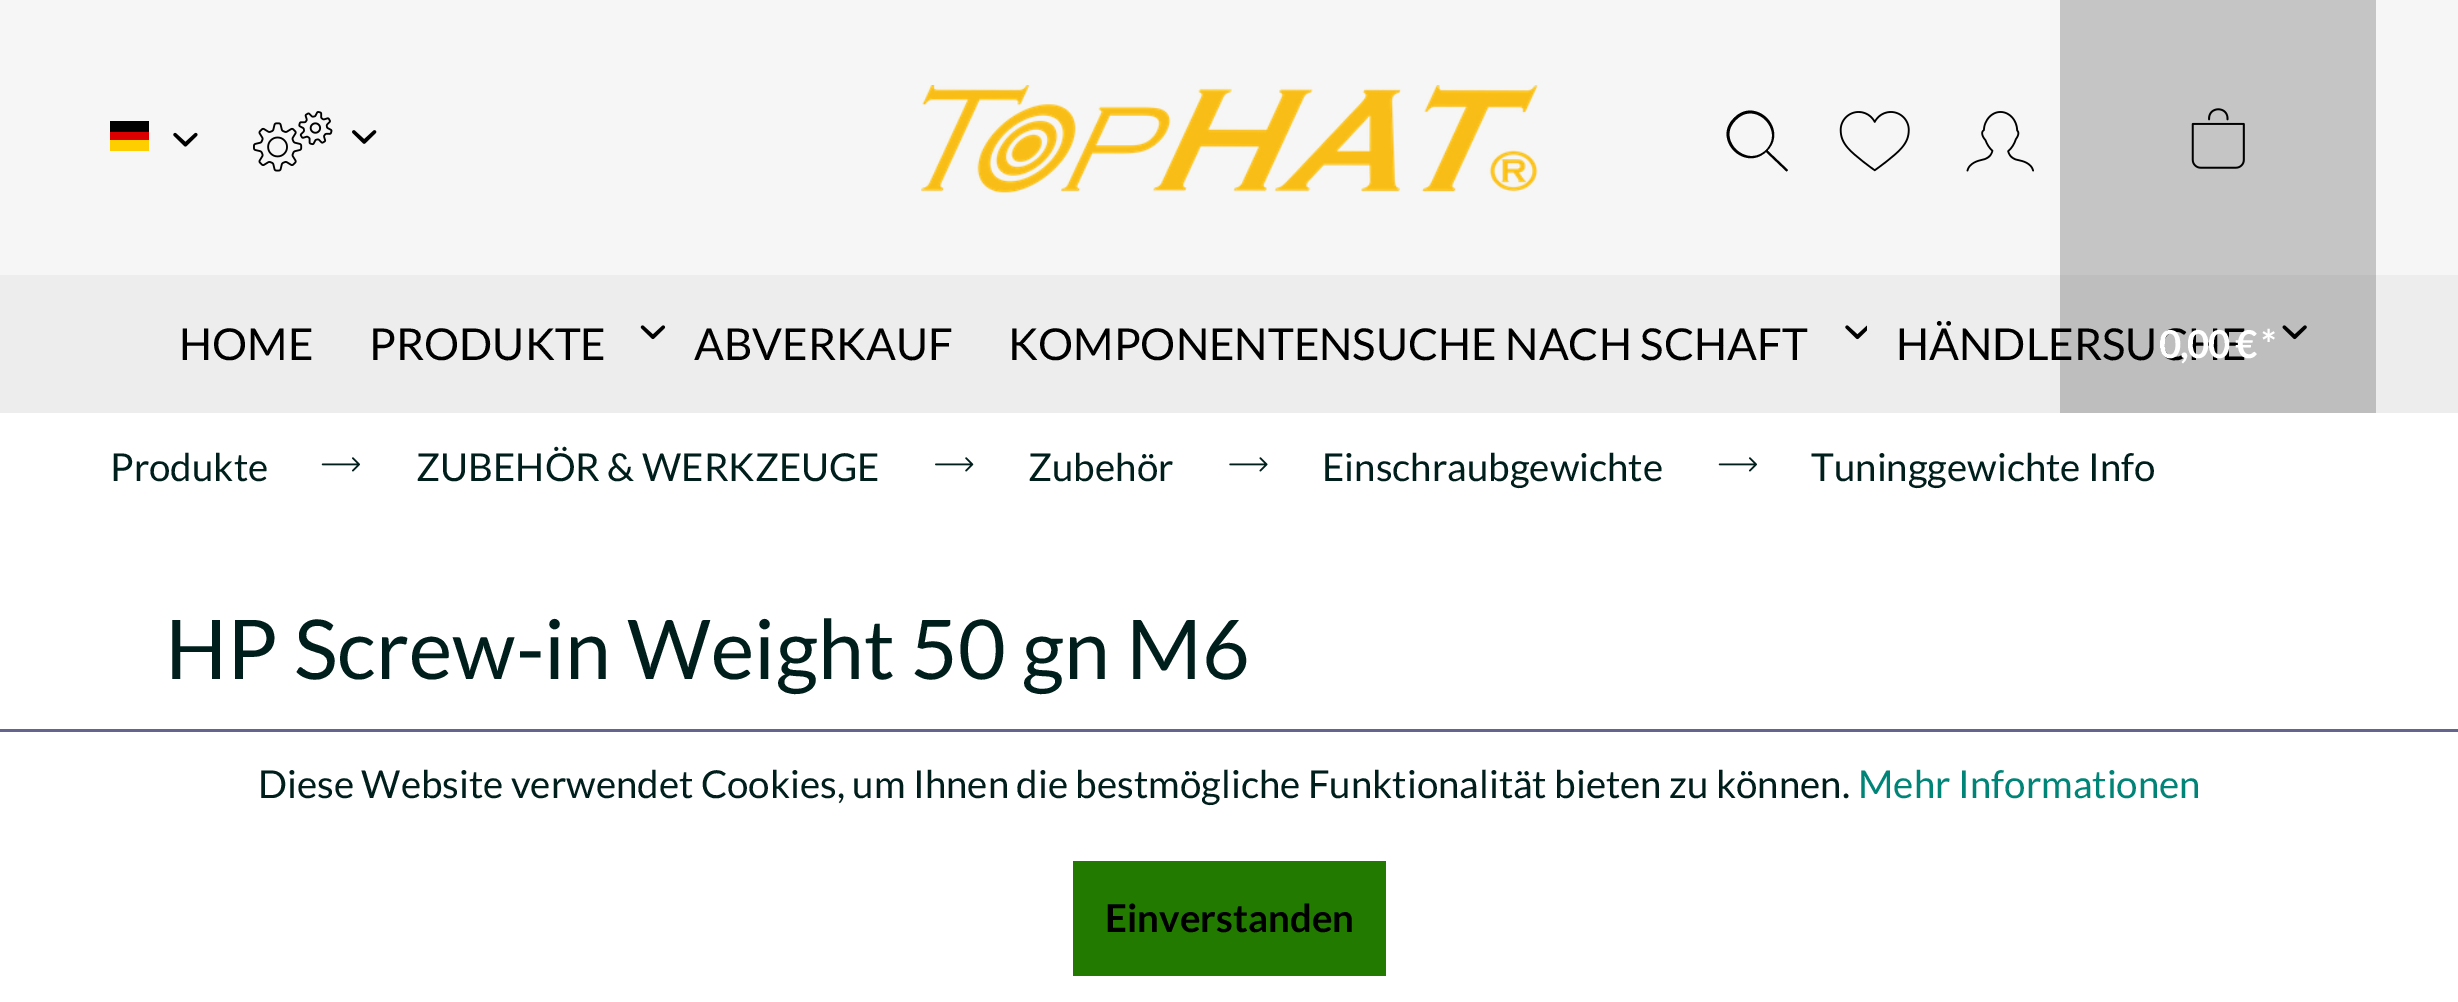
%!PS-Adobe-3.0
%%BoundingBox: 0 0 2458 1002
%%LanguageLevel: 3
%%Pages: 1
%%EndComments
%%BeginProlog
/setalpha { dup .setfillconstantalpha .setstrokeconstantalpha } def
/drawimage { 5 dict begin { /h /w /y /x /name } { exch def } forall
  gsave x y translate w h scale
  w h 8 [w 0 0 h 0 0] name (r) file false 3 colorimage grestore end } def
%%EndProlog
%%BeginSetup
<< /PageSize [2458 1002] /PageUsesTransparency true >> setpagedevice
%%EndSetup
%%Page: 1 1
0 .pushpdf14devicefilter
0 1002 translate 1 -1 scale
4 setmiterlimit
1 setgray
0 0 2458 1002 rectfill
0.929 setgray
0 275 2458 138 rectfill
(images/1.raw) 640 325 26 15 drawimage
(images/2.raw) 1845 325 22 15 drawimage
(images/3.raw) 2282 325 25 15 drawimage
0.965 setgray
0 0 2458 275 rectfill
(images/4.raw) 921 85 617 108 drawimage
0 setgray
110 121 39 11 rectfill
0.867 0 0 setrgbcolor
110 132 39 8 rectfill
1 0.808 0 setrgbcolor
110 140 39 11 rectfill
(images/5.raw) 173 132 25 15 drawimage
(images/6.raw) 253 111 80 61 drawimage
(images/7.raw) 352 130 25 14 drawimage
0 setgray
newpath 1768 151 moveto 1768 150 lineto 1788 128 1755 96 1734 118 curveto 1712 139 1744 172 1766 152 curveto 1786 171 lineto 1787 172 1787 171 1788 170 curveto closepath 1766 150 moveto 1746 169 1716 139 1736 120 curveto 1755 100 1785 130 1766 150 curveto closepath fill
(images/8.raw) 1839 111 71 61 drawimage
(images/9.raw) 1966 111 68 61 drawimage
(images/11.raw) 321 457 39 15 drawimage
(images/12.raw) 935 457 39 15 drawimage
(images/13.raw) 1229 457 39 15 drawimage
(images/11.raw) 1718 457 39 15 drawimage
0.392 0.392 0.561 setrgbcolor
0 729 2458 3 rectfill
0.133 0.482 0 setrgbcolor
1073 861 313 115 rectfill
/Lato-Regular [44 0 0 -44 0 0] selectfont
0 setgray
179 360 moveto (HOME) show
369 360 moveto (PRODUKTE) show
694 360 moveto (ABVERKAUF) show
1008 360 moveto (KOMPONENTENSUCHE NACH SCHAFT) show
1896 360 moveto (HÄNDLERSUCHE) show
0.2 setalpha
2060 0 316 413 rectfill
1 setalpha
(images/10.raw) 2191 108 54 61 drawimage
/Lato-Bold [38.5 0 0 -38.5 0 0] selectfont
1 setgray
2159 358 moveto -1.5 0 (0,00 € *) ashow
/Lato-Regular [38.5 0 0 -38.5 0 0] selectfont
0 0.118 0.106 setrgbcolor
110 481 moveto (Produkte) show
416 481 moveto (ZUBEHÖR & WERKZEUGE) show
1028 481 moveto (Zubehör) show
1322 481 moveto (Einschraubgewichte) show
1811 481 moveto (Tuninggewichte Info) show
/Lato-Regular [82.5 0 0 -82.5 0 0] selectfont
165 679 moveto (HP Screw-in Weight 50 gn M6) show
/Lato-Regular [38.5 0 0 -38.5 0 0] selectfont
258 798 moveto (Diese Website verwendet Cookies, um Ihnen die bestmögliche Funktionalität bieten zu können.) show
0 0.518 0.467 setrgbcolor
1858 798 moveto (Mehr Informationen) show
/Lato-Bold [38.5 0 0 -38.5 0 0] selectfont
0 setgray
1105 932 moveto (Einverstanden) show
.poppdf14devicefilter showpage
%%EOF
